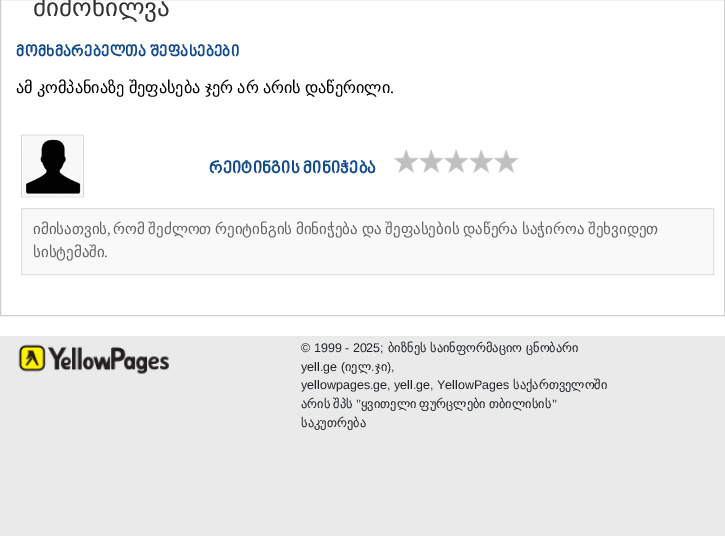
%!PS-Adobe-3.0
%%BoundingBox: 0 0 725 536
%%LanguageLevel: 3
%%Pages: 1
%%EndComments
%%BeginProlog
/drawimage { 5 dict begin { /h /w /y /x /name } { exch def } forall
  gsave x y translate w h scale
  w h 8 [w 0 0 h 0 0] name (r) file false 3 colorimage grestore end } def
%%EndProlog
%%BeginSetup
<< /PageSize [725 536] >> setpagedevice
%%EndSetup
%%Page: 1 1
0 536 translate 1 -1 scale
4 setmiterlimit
1 setgray
0 0 725 536 rectfill
0.808 setgray
0.5 -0.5 724 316 rectstroke
(images/1.raw) 21 134 63 64 drawimage
(images/2.raw) 394 149 125 25 drawimage
0.976 setgray
newpath 21.5 208.5 moveto 713.5 208.5 lineto 713.5 274.5 lineto 21.5 274.5 lineto closepath gsave fill grestore
0.878 setgray
stroke
0.918 setgray
0 336 725 200 rectfill
(images/3.raw) 18 344 151 30 drawimage
/DejaVuSans-Regular [25 0 0 -25 0 0] selectfont
0.2 setgray
33 16 moveto (მიმოხილვა) show
/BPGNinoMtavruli-Bold [16.25 0 0 -16.25 0 0] selectfont
0.067 0.294 0.549 setrgbcolor
16 57 moveto (მომხმარებელთა შეფასებები) show
/DejaVuSans-Regular [16.25 0 0 -16.25 0 0] selectfont
0 setgray
16 93 moveto -1 0 32 (ამ კომპანიაზე შეფასება ჯერ არ არის დაწერილი) widthshow
/LiberationSerif-Regular [16.25 0 0 -16.25 0 0] selectfont
390 93 moveto (.) show
/BPGNinoMtavruli-Bold [17.5 0 0 -17.5 0 0] selectfont
0.067 0.294 0.549 setrgbcolor
209 174 moveto (რეიტინგის მინიჭება) show
/DejaVuSans-Regular [15 0 0 -15 0 0] selectfont
0.4 setgray
33 234 moveto (იმისათვის) show
/LiberationSerif-Regular [15 0 0 -15 0 0] selectfont
107 234 moveto (,) show
/DejaVuSans-Regular [15 0 0 -15 0 0] selectfont
113 234 moveto -1 0 32 (რომ შეძლოთ რეიტინგის მინიჭება და შეფასების დაწერა საჭიროა შეხვიდეთ) widthshow
33 257 moveto (სისტემაში) show
/LiberationSerif-Regular [15 0 0 -15 0 0] selectfont
104 257 moveto (.) show
/LiberationSans-Regular [12.5 0 0 -12.5 0 0] selectfont
0.129 0.145 0.161 setrgbcolor
301 352 moveto (© 1999 - 2025;) show
/DejaVuSans-Regular [12.5 0 0 -12.5 0 0] selectfont
388 352 moveto (ბიზნეს) show
430 352 moveto (საინფორმაციო) show
526 352 moveto (ცნობარი) show
/LiberationSans-Regular [12.5 0 0 -12.5 0 0] selectfont
301 371 moveto (yell.ge \() show
/DejaVuSans-Regular [12.5 0 0 -12.5 0 0] selectfont
345 371 moveto (იელ) show
/LiberationSans-Regular [12.5 0 0 -12.5 0 0] selectfont
371 371 moveto (.) show
/DejaVuSans-Regular [12.5 0 0 -12.5 0 0] selectfont
375 371 moveto (ჯი) show
/LiberationSans-Regular [12.5 0 0 -12.5 0 0] selectfont
387 371 moveto (\),) show
301 389 moveto (yellowpages.ge, yell.ge, YellowPages) show
/DejaVuSans-Regular [12.5 0 0 -12.5 0 0] selectfont
513 389 moveto (საქართველოში) show
301 408 moveto -1 0 32 (არის შპს) widthshow
/LiberationSerif-Regular [12.5 0 0 -12.5 0 0] selectfont
356 408 moveto (") show
/DejaVuSans-Regular [12.5 0 0 -12.5 0 0] selectfont
361 408 moveto -1 0 32 (ყვითელი ფურცლები თბილისის) widthshow
/LiberationSerif-Regular [12.5 0 0 -12.5 0 0] selectfont
552 408 moveto (") show
/DejaVuSans-Regular [12.5 0 0 -12.5 0 0] selectfont
301 427 moveto (საკუთრება) show
showpage
%%EOF
